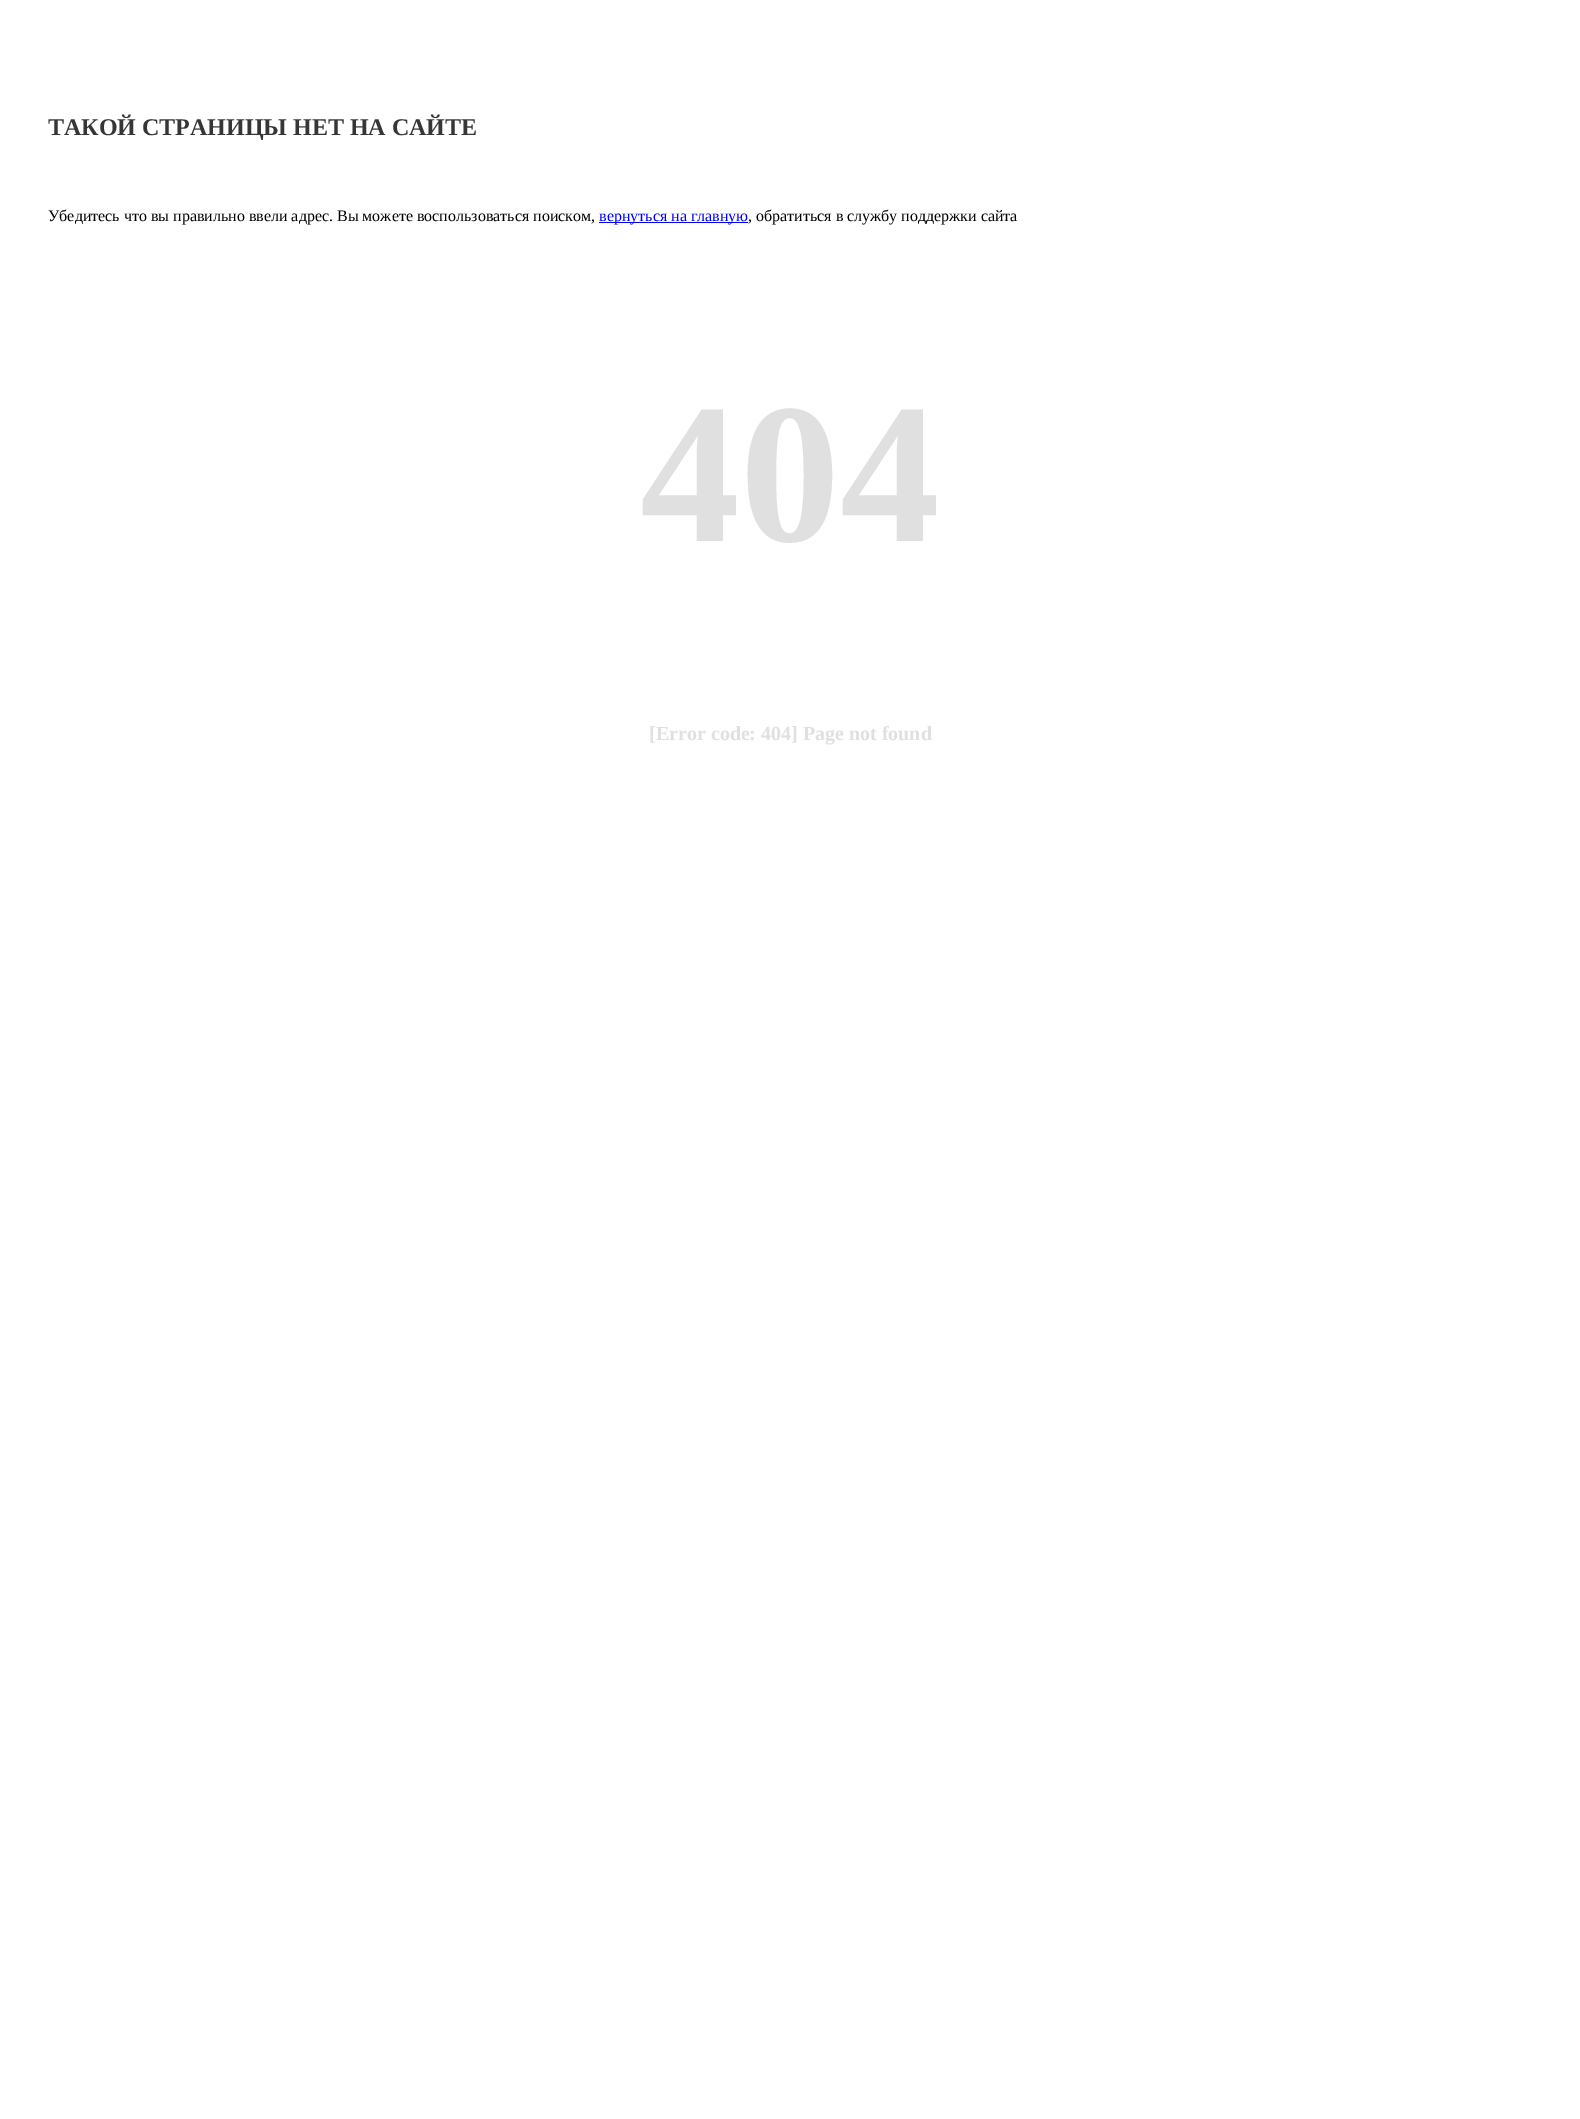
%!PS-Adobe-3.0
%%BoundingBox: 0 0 1580 2119
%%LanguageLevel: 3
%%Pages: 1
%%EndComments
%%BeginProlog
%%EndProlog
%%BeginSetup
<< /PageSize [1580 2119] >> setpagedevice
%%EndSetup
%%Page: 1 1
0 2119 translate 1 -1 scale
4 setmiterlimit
1 setgray
0 0 1580 2119 rectfill
0 0 0.933 setrgbcolor
599 222 149 1 rectfill
/LiberationSerif-Bold [24 0 0 -24 0 0] selectfont
0.212 setgray
48 135 moveto (ТАКОЙ СТРАНИЦЫ НЕТ НА САЙТЕ) show
/LiberationSerif-Regular [16 0 0 -16 0 0] selectfont
0 setgray
48 221 moveto (Убедитесь что вы правильно ввели адрес. Вы можете воспользоваться поиском,) show
0 0 0.933 setrgbcolor
599 221 moveto (вернуться на главную) show
0 setgray
748 221 moveto (, обратиться в службу поддержки сайта) show
/LiberationSerif-Bold [200 0 0 -200 0 0] selectfont
0.878 setgray
640 541 moveto (404) show
/LiberationSerif-Bold [20 0 0 -20 0 0] selectfont
649 740 moveto ([Error code: 404] Page not found) show
showpage
%%EOF
